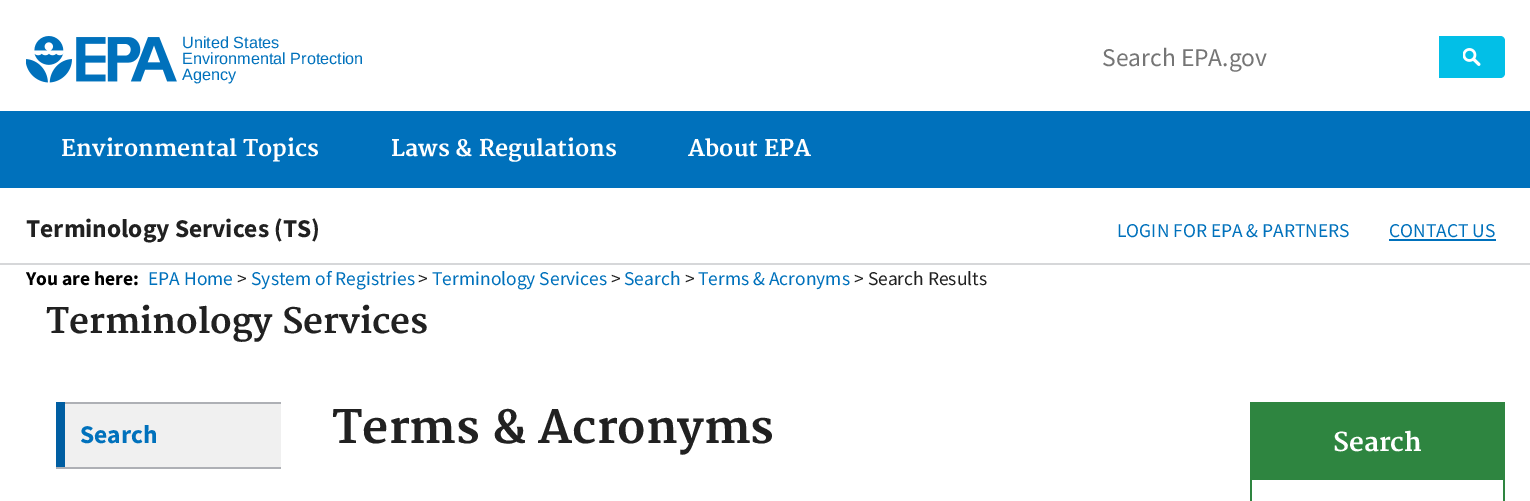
%!PS-Adobe-3.0
%%BoundingBox: 0 0 1530 501
%%LanguageLevel: 3
%%Pages: 1
%%EndComments
%%BeginProlog
/drawimage { 5 dict begin { /h /w /y /x /name } { exch def } forall
  gsave x y translate w h scale
  w h 8 [w 0 0 h 0 0] name (r) file false 3 colorimage grestore end } def
%%EndProlog
%%BeginSetup
<< /PageSize [1530 501] >> setpagedevice
%%EndSetup
%%Page: 1 1
0 501 translate 1 -1 scale
4 setmiterlimit
1 setgray
0 0 1530 501 rectfill
(images/1.raw) 26 36 151 47 drawimage
0.008 0.749 0.906 setrgbcolor
newpath 1439 36 moveto 1500 36 lineto 1503 36 1505 38 1505 41 curveto 1505 73 lineto 1505 76 1503 78 1500 78 curveto 1439 78 lineto closepath fill
(images/2.raw) 1463 48 18 18 drawimage
0 0.443 0.737 setrgbcolor
0 111 1530 77 rectfill
0.839 0.843 0.851 setrgbcolor
0 263 1530 2 rectfill
0 0.443 0.737 setrgbcolor
1389 239 107 2 rectfill
0.941 setgray
65 404 216 63 rectfill
0 0.369 0.635 setrgbcolor
56 402 9 65 rectfill
0.682 0.69 0.71 setrgbcolor
65 402 216 2 rectfill
56 467 225 2 rectfill
0.18 0.522 0.251 setrgbcolor
1250 402 255 78 rectfill
1503 480 2 21 rectfill
1250 480 2 21 rectfill
/LiberationSans-Regular [16.25 0 0 -16.25 0 0] selectfont
0 0.443 0.737 setrgbcolor
182 48 moveto (United States) show
182 64 moveto (Environmental Protection) show
182 80 moveto (Agency) show
/SourceSansPro-Regular [25.5 0 0 -25.5 0 0] selectfont
0.459 setgray
1102 66 moveto (Search EPA.gov) show
/Merriweather-Bold [22.5 0 0 -22.5 0 0] selectfont
1 setgray
61 156 moveto (Environmental Topics) show
391 156 moveto (Laws & Regulations) show
688 156 moveto (About EPA) show
/SourceSansPro-Bold [25.5 0 0 -25.5 0 0] selectfont
0.129 setgray
26 237 moveto (Terminology Services \(TS\)) show
/SourceSansPro-Regular [19.5 0 0 -19.5 0 0] selectfont
0 0.443 0.737 setrgbcolor
1117 237 moveto (LOGIN FOR EPA & PARTNERS) show
1389 237 moveto (CONTACT US) show
/SourceSansPro-Bold [19.5 0 0 -19.5 0 0] selectfont
0 setgray
26 285 moveto (You are here:) show
/SourceSansPro-Regular [19.5 0 0 -19.5 0 0] selectfont
0 0.443 0.737 setrgbcolor
148 285 moveto (EPA Home) show
0.129 setgray
237 285 moveto (>) show
0 0.443 0.737 setrgbcolor
251 285 moveto (System of Registries) show
0.129 setgray
418 285 moveto (>) show
0 0.443 0.737 setrgbcolor
432 285 moveto (Terminology Services) show
0.129 setgray
611 285 moveto (>) show
0 0.443 0.737 setrgbcolor
624 285 moveto (Search) show
0.129 setgray
685 285 moveto (>) show
0 0.443 0.737 setrgbcolor
698 285 moveto (Terms & Acronyms) show
0.129 setgray
854 285 moveto (> Search Results) show
/Merriweather-Bold [34.25 0 0 -34.25 0 0] selectfont
46 333 moveto (Terminology Services) show
/SourceSansPro-Bold [25.5 0 0 -25.5 0 0] selectfont
0 0.443 0.737 setrgbcolor
80 443 moveto (Search) show
/Merriweather-Bold [45 0 0 -45 0 0] selectfont
0.129 setgray
332 443 moveto (Terms & Acronyms) show
/Merriweather-Bold [25.5 0 0 -25.5 0 0] selectfont
1 setgray
1333 451 moveto (Search) show
showpage
%%EOF
